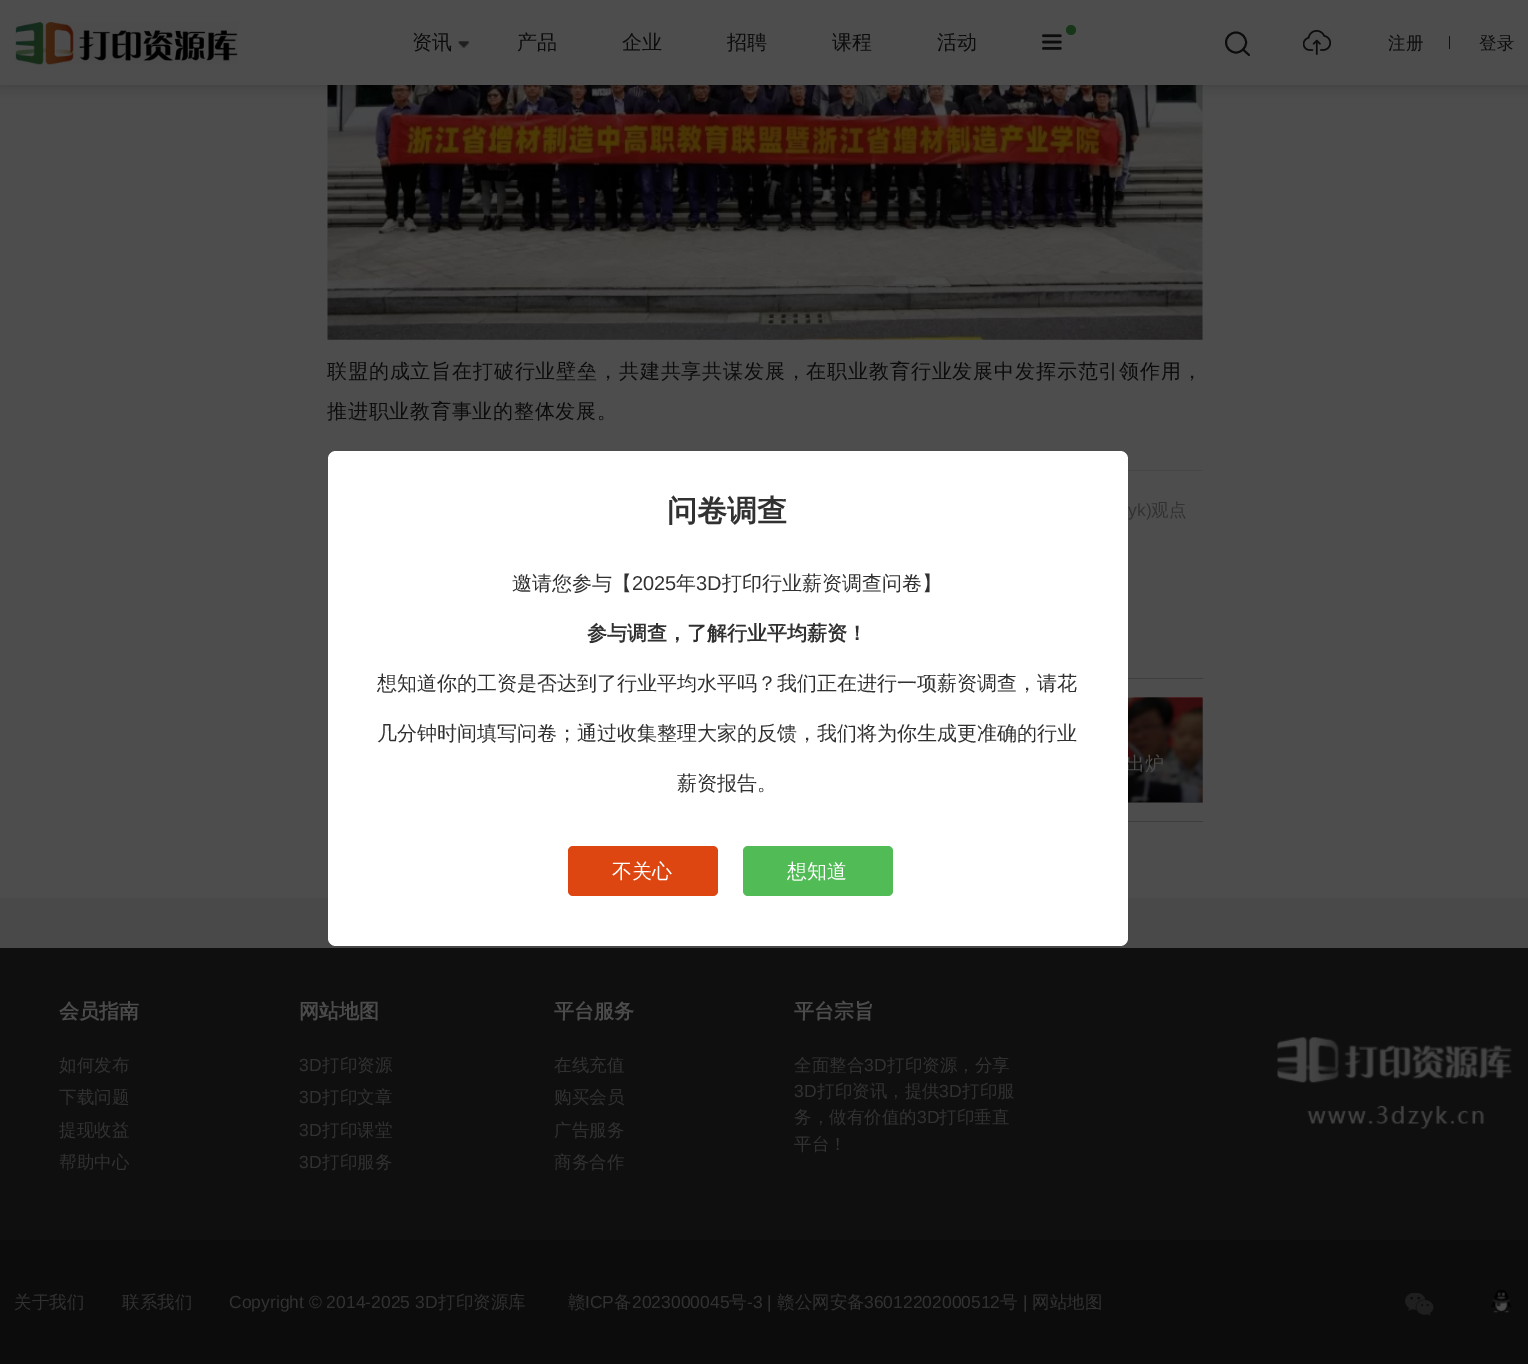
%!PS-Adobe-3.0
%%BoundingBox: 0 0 1528 1364
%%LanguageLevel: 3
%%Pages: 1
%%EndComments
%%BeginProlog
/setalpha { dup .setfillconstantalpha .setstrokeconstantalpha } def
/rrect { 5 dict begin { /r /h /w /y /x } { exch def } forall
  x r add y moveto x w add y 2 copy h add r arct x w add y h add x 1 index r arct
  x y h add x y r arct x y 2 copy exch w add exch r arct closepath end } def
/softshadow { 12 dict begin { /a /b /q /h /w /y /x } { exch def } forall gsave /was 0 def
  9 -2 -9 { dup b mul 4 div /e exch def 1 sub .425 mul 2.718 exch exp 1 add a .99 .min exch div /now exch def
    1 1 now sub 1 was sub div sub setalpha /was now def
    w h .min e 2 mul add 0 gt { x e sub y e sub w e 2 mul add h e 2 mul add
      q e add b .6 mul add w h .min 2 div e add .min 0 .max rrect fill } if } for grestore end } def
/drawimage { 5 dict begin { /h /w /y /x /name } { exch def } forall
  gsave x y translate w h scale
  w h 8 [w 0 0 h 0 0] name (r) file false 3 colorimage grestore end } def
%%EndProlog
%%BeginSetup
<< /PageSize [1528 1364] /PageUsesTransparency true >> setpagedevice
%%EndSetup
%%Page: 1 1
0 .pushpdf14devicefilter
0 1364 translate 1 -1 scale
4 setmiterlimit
0.286 setgray
0 0 1528 1364 rectfill
0.302 setgray
0 85 1528 813 rectfill
(images/5.raw) 327 85 876 255 drawimage
0 setgray
0 0 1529 85 0 6 0.2 softshadow
0.302 setgray
0 0 1528 85 rectfill
(images/1.raw) 15 22 223 43 drawimage
(images/2.raw) 458 41 11 7 drawimage
0.09 0.208 0.094 setrgbcolor
newpath 1071 30 5 0 360 arc closepath fill
(images/3.raw) 1042 34 20 16 drawimage
0.047 setgray
1.9 setlinewidth
newpath 1236 42.5 10 0 360 arc closepath stroke
1 setlinecap
1 setlinejoin
newpath 1243 49.5 moveto 1249 55 lineto stroke
(images/4.raw) 1303 30 28 25 drawimage
0.059 setgray
1449 36 1 13 rectfill
0.212 setgray
1128 698 75 105 rectfill
0.278 setgray
1128 470 75 1 rectfill
0.239 setgray
1128 678 75 1 rectfill
1128 821 75 1 rectfill
(images/6.raw) 1128 697 75 106 drawimage
0.059 setgray
0 948 1528 292 rectfill
(images/7.raw) 1277 1037 235 92 drawimage
0.047 setgray
0 1240 1528 124 rectfill
(images/8.raw) 1405 1293 29 23 drawimage
(images/9.raw) 1491 1289 21 24 drawimage
/WenQuanYiZenHei-Medium [20 0 0 -20 0 0] selectfont
412 49 moveto (资讯) show
517 49 moveto (产品) show
622 49 moveto (企业) show
727 49 moveto (招聘) show
832 49 moveto (课程) show
937 49 moveto (活动) show
/WenQuanYiZenHei-Medium [17.5 0 0 -17.5 0 0] selectfont
1388 49 moveto (注册) show
1479 49 moveto (登录) show
/WenQuanYiZenHei-Medium [20 0 0 -20 0 0] selectfont
327 378 moveto 0.85 0 (联盟的成立旨在打破行业壁垒，共建共享共谋发展，在职业教育行业发展中发挥示范引领作用，) ashow
327 418 moveto 0.75 0 (推进职业教育事业的整体发展。) ashow
/LiberationSans-Regular [17.5 0 0 -17.5 0 0] selectfont
0.192 setgray
1128 516 moveto (yk\)) show
/WenQuanYiZenHei-Medium [17.5 0 0 -17.5 0 0] selectfont
1151 516 moveto (观点) show
/WenQuanYiZenHei-Medium [19 0 0 -19 0 0] selectfont
0.294 setgray
1126 770 moveto (出炉) show
1 setgray
328 451 800 495 8 rrect fill
/WenQuanYiZenHei-Bold [30 0 0 -30 0 0] selectfont
0.192 setgray
667 521 moveto (问卷调查) show
/WenQuanYiZenHei-Medium [20 0 0 -20 0 0] selectfont
512 590 moveto (邀请您参与【) show
/LiberationSans-Regular [20 0 0 -20 0 0] selectfont
632 590 moveto (2025) show
/WenQuanYiZenHei-Medium [20 0 0 -20 0 0] selectfont
676 590 moveto (年) show
/LiberationSans-Regular [20 0 0 -20 0 0] selectfont
696 590 moveto (3D) show
/WenQuanYiZenHei-Medium [20 0 0 -20 0 0] selectfont
722 590 moveto (打印行业薪资调查问卷】) show
/WenQuanYiZenHei-Bold [20 0 0 -20 0 0] selectfont
587 640 moveto (参与调查，了解行业平均薪资！) show
/WenQuanYiZenHei-Medium [20 0 0 -20 0 0] selectfont
377 690 moveto (想知道你的工资是否达到了行业平均水平吗？我们正在进行一项薪资调查，请花) show
377 740 moveto (几分钟时间填写问卷；通过收集整理大家的反馈，我们将为你生成更准确的行业) show
677 790 moveto (薪资报告。) show
0.867 0.275 0.067 setrgbcolor
568 846 150 50 5 rrect fill
1 setgray
612 878 moveto (不关心) show
0.318 0.733 0.333 setrgbcolor
743 846 150 50 5 rrect fill
1 setgray
787 878 moveto (想知道) show
/WenQuanYiZenHei-Bold [20 0 0 -20 0 0] selectfont
0.294 setgray
59 1018 moveto (会员指南) show
/WenQuanYiZenHei-Medium [17.5 0 0 -17.5 0 0] selectfont
0.192 setgray
59 1071 moveto (如何发布) show
59 1103 moveto (下载问题) show
59 1136 moveto (提现收益) show
59 1168 moveto (帮助中心) show
/WenQuanYiZenHei-Bold [20 0 0 -20 0 0] selectfont
0.294 setgray
299 1018 moveto (网站地图) show
/LiberationSans-Regular [17.5 0 0 -17.5 0 0] selectfont
0.192 setgray
299 1071 moveto (3D) show
/WenQuanYiZenHei-Medium [17.5 0 0 -17.5 0 0] selectfont
322 1071 moveto (打印资源) show
/LiberationSans-Regular [17.5 0 0 -17.5 0 0] selectfont
299 1103 moveto (3D) show
/WenQuanYiZenHei-Medium [17.5 0 0 -17.5 0 0] selectfont
322 1103 moveto (打印文章) show
/LiberationSans-Regular [17.5 0 0 -17.5 0 0] selectfont
299 1136 moveto (3D) show
/WenQuanYiZenHei-Medium [17.5 0 0 -17.5 0 0] selectfont
322 1136 moveto (打印课堂) show
/LiberationSans-Regular [17.5 0 0 -17.5 0 0] selectfont
299 1168 moveto (3D) show
/WenQuanYiZenHei-Medium [17.5 0 0 -17.5 0 0] selectfont
322 1168 moveto (打印服务) show
/WenQuanYiZenHei-Bold [20 0 0 -20 0 0] selectfont
0.294 setgray
554 1018 moveto (平台服务) show
/WenQuanYiZenHei-Medium [17.5 0 0 -17.5 0 0] selectfont
0.192 setgray
554 1071 moveto (在线充值) show
554 1103 moveto (购买会员) show
554 1136 moveto (广告服务) show
554 1168 moveto (商务合作) show
/WenQuanYiZenHei-Bold [20 0 0 -20 0 0] selectfont
0.294 setgray
794 1018 moveto (平台宗旨) show
/WenQuanYiZenHei-Medium [17.5 0 0 -17.5 0 0] selectfont
0.192 setgray
794 1071 moveto (全面整合) show
/LiberationSans-Regular [17.5 0 0 -17.5 0 0] selectfont
864 1071 moveto (3D) show
/WenQuanYiZenHei-Medium [17.5 0 0 -17.5 0 0] selectfont
887 1071 moveto (打印资源，分享) show
/LiberationSans-Regular [17.5 0 0 -17.5 0 0] selectfont
794 1097 moveto (3D) show
/WenQuanYiZenHei-Medium [17.5 0 0 -17.5 0 0] selectfont
817 1097 moveto (打印资讯，提供) show
/LiberationSans-Regular [17.5 0 0 -17.5 0 0] selectfont
939 1097 moveto (3D) show
/WenQuanYiZenHei-Medium [17.5 0 0 -17.5 0 0] selectfont
962 1097 moveto (打印服) show
794 1123 moveto (务，做有价值的) show
/LiberationSans-Regular [17.5 0 0 -17.5 0 0] selectfont
917 1123 moveto (3D) show
/WenQuanYiZenHei-Medium [17.5 0 0 -17.5 0 0] selectfont
939 1123 moveto (打印垂直) show
794 1150 moveto (平台！) show
14 1308 moveto (关于我们) show
122 1308 moveto (联系我们) show
/LiberationSans-Regular [17.5 0 0 -17.5 0 0] selectfont
229 1308 moveto (Copyright © 2014-2025 3D) show
/WenQuanYiZenHei-Medium [17.5 0 0 -17.5 0 0] selectfont
438 1308 moveto (打印资源库) show
568 1308 moveto (赣) show
/LiberationSans-Regular [17.5 0 0 -17.5 0 0] selectfont
585 1308 moveto (ICP) show
/WenQuanYiZenHei-Medium [17.5 0 0 -17.5 0 0] selectfont
614 1308 moveto (备) show
/LiberationSans-Regular [17.5 0 0 -17.5 0 0] selectfont
632 1308 moveto (2023000045) show
/WenQuanYiZenHei-Medium [17.5 0 0 -17.5 0 0] selectfont
729 1308 moveto (号) show
/LiberationSans-Regular [17.5 0 0 -17.5 0 0] selectfont
747 1308 moveto (-3 |) show
/WenQuanYiZenHei-Medium [17.5 0 0 -17.5 0 0] selectfont
777 1308 moveto (赣公网安备) show
/LiberationSans-Regular [17.5 0 0 -17.5 0 0] selectfont
864 1308 moveto (36012202000512) show
/WenQuanYiZenHei-Medium [17.5 0 0 -17.5 0 0] selectfont
1000 1308 moveto (号) show
/LiberationSans-Regular [17.5 0 0 -17.5 0 0] selectfont
1023 1308 moveto (|) show
/WenQuanYiZenHei-Medium [17.5 0 0 -17.5 0 0] selectfont
1032 1308 moveto (网站地图) show
.poppdf14devicefilter showpage
%%EOF
